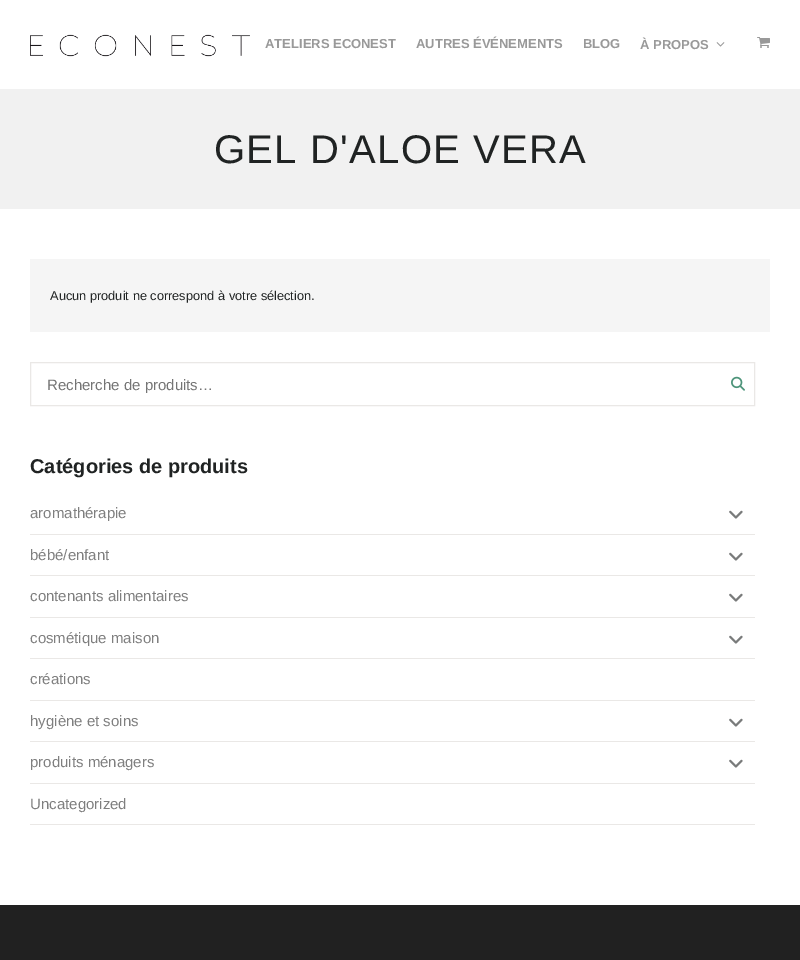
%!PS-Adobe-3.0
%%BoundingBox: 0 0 800 960
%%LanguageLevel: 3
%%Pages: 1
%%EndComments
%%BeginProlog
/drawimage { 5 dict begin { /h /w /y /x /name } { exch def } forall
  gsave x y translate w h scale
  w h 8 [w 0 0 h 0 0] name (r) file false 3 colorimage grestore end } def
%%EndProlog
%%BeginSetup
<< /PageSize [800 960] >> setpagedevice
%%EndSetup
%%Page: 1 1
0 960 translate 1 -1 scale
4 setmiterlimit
1 setgray
0 0 800 960 rectfill
(images/1.raw) 30 34 220 23 drawimage
(images/2.raw) 716 42 9 5 drawimage
(images/3.raw) 757 37 13 11 drawimage
0.945 setgray
0 89 800 120 rectfill
0.961 setgray
30 259 740 73 rectfill
0.918 0.91 0.902 setrgbcolor
30.5 362.5 724 43 rectstroke
(images/4.raw) 731 376 14 15 drawimage
30 534 725 1 rectfill
(images/5.raw) 729 510 14 9 drawimage
30 575 725 1 rectfill
(images/5.raw) 729 552 14 9 drawimage
30 617 725 1 rectfill
(images/5.raw) 729 593 14 9 drawimage
30 658 725 1 rectfill
(images/5.raw) 729 635 14 9 drawimage
30 700 725 1 rectfill
30 741 725 1 rectfill
(images/5.raw) 729 718 14 9 drawimage
30 783 725 1 rectfill
(images/5.raw) 729 759 14 9 drawimage
30 824 725 1 rectfill
0.129 setgray
0 905 800 55 rectfill
/LiberationSans-Bold [13 0 0 -13 0 0] selectfont
0.6 setgray
265 48 moveto (ATELIERS ECONEST) show
416 48 moveto (AUTRES ÉVÉNEMENTS) show
583 48 moveto (BLOG) show
640 49 moveto (À PROPOS) show
/LiberationSans-Regular [40 0 0 -40 0 0] selectfont
0.125 0.137 0.137 setrgbcolor
214 163 moveto 1.25 0 (GEL D'ALOE VERA) ashow
/LiberationSans-Regular [12.8 0 0 -12.8 0 0] selectfont
50 300 moveto (Aucun produit ne correspond à votre sélection.) show
/LiberationSans-Regular [15 0 0 -15 0 0] selectfont
0.459 setgray
47 390 moveto (Recherche de produits…) show
/LiberationSans-Bold [20 0 0 -20 0 0] selectfont
0.125 0.137 0.137 setrgbcolor
30 473 moveto (Catégories de produits) show
/LiberationSans-Regular [15 0 0 -15 0 0] selectfont
0.498 setgray
30 518 moveto (aromathérapie) show
30 560 moveto (bébé/enfant) show
30 601 moveto (contenants alimentaires) show
30 643 moveto (cosmétique maison) show
30 684 moveto (créations) show
30 726 moveto (hygiène et soins) show
30 767 moveto (produits ménagers) show
30 809 moveto (Uncategorized) show
showpage
%%EOF
